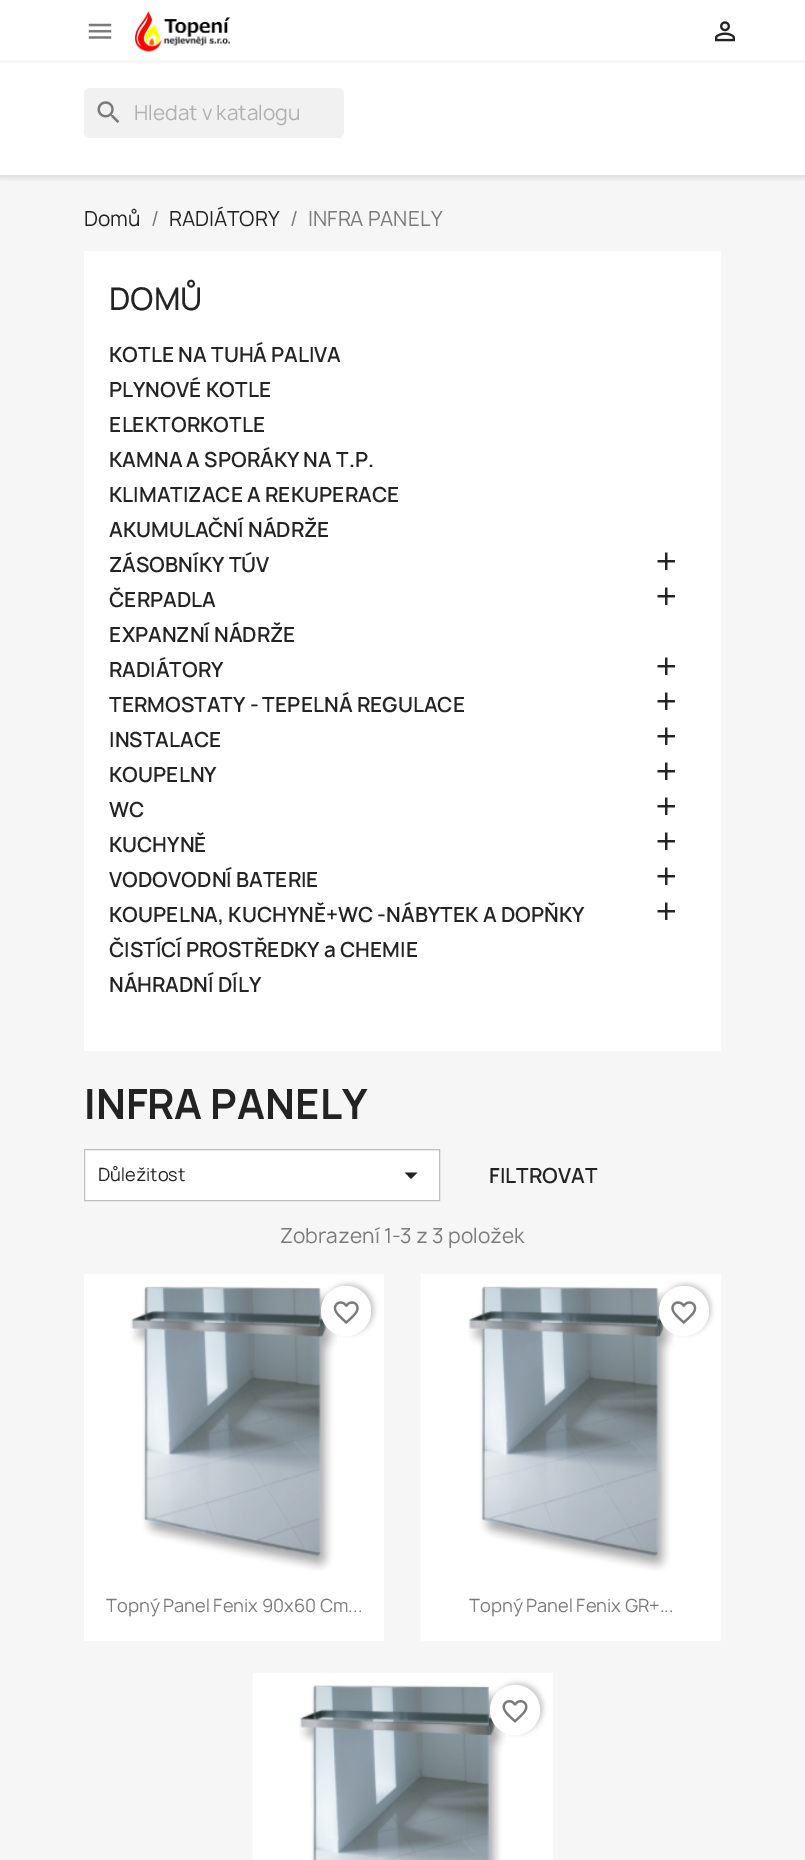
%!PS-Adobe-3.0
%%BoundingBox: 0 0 805 1860
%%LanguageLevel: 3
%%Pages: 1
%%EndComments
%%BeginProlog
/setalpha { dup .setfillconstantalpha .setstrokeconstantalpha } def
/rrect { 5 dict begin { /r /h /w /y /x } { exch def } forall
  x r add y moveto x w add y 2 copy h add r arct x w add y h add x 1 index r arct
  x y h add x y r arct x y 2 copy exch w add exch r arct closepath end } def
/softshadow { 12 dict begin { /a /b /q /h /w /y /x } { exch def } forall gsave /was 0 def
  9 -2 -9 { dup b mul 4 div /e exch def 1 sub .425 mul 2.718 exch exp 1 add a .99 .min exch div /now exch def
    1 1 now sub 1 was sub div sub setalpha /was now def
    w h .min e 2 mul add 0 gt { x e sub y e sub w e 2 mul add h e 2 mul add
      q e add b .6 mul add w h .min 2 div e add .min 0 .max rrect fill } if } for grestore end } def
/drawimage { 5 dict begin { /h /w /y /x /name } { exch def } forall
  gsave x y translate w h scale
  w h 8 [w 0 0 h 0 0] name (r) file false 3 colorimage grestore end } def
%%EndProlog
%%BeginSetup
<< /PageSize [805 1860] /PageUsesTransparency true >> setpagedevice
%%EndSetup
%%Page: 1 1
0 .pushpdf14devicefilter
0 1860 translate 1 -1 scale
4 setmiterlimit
1 setgray
0 0 805 1860 rectfill
0.965 setgray
0 175 805 1685 rectfill
gsave
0 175 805 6 rectclip
0 setgray
0 3 805 175 0 3 0.11 softshadow
grestore
0 60 805 3 rectfill
(images/1.raw) 88 23 24 16 drawimage
(images/2.raw) 135 11 95 41 drawimage
(images/3.raw) 715 21 20 21 drawimage
0.945 setgray
84 88 260 50 6 rrect fill
(images/4.raw) 97 101 23 22 drawimage
1 setgray
84 251 637 800 rectfill
(images/5.raw) 657 552 18 18 drawimage
(images/5.raw) 657 587 18 18 drawimage
(images/5.raw) 657 657 18 18 drawimage
(images/5.raw) 657 692 18 18 drawimage
(images/5.raw) 657 727 18 18 drawimage
(images/5.raw) 657 762 18 18 drawimage
(images/5.raw) 657 797 18 18 drawimage
(images/5.raw) 657 832 18 18 drawimage
(images/5.raw) 657 867 18 18 drawimage
(images/5.raw) 657 902 18 18 drawimage
newpath 84.5 1149.5 moveto 439.5 1149.5 lineto 439.5 1200.5 lineto 84.5 1200.5 lineto closepath gsave fill grestore
0.749 setgray
stroke
0.137 setgray
newpath 405 1172.5 moveto 417.5 1172.5 lineto 411 1179 lineto closepath fill
1 setgray
84 1274 300 367 rectfill
(images/6.raw) 130 1286 207 285 drawimage
0 setgray
324 1284 50 50 25 2.5 0.2 softshadow
1 setgray
newpath 346 1311 25 0 360 arc closepath fill
(images/7.raw) 333 1301 26 23 drawimage
421 1274 300 367 rectfill
(images/8.raw) 468 1286 206 285 drawimage
0 setgray
661 1284 50 50 25 2.5 0.2 softshadow
1 setgray
newpath 684 1311 25 0 360 arc closepath fill
(images/9.raw) 671 1301 26 23 drawimage
253 1673 300 187 rectfill
(images/10.raw) 299 1685 207 175 drawimage
0 setgray
493 1683 50 50 25 2.5 0.2 softshadow
1 setgray
newpath 515 1710 25 0 360 arc closepath fill
(images/11.raw) 502 1700 26 23 drawimage
/Manrope-Regular [20 0 0 -20 0 0] selectfont
0.694 setgray
134 120 moveto (Hledat v katalogu) show
0.137 setgray
84 226 moveto (Domů) show
0.478 setgray
151 226 moveto (/) show
0.137 setgray
169 226 moveto (RADIÁTORY) show
0.478 setgray
290 226 moveto (/) show
308 226 moveto (INFRA PANELY) show
/Manrope-Medium [30 0 0 -30 0 0] selectfont
0.137 setgray
109 310 moveto (DOMŮ) show
/Manrope-SemiBold [20 0 0 -20 0 0] selectfont
109 362 moveto (KOTLE NA TUHÁ PALIVA) show
109 397 moveto (PLYNOVÉ KOTLE) show
109 432 moveto (ELEKTORKOTLE) show
109 467 moveto (KAMNA A SPORÁKY NA T.P.) show
109 502 moveto (KLIMATIZACE A REKUPERACE) show
109 537 moveto (AKUMULAČNÍ NÁDRŽE) show
109 572 moveto (ZÁSOBNÍKY TÚV) show
109 607 moveto (ČERPADLA) show
109 642 moveto (EXPANZNÍ NÁDRŽE) show
109 677 moveto (RADIÁTORY) show
109 712 moveto (TERMOSTATY - TEPELNÁ REGULACE) show
109 747 moveto (INSTALACE) show
109 782 moveto (KOUPELNY) show
109 817 moveto (WC) show
109 852 moveto (KUCHYNĚ) show
109 887 moveto (VODOVODNÍ BATERIE) show
109 922 moveto (KOUPELNA, KUCHYNĚ+WC -NÁBYTEK A DOPŇKY) show
109 957 moveto (ČISTÍCÍ PROSTŘEDKY a CHEMIE) show
109 992 moveto (NÁHRADNÍ DÍLY) show
/Manrope-Bold [40 0 0 -40 0 0] selectfont
84 1119 moveto (INFRA PANELY) show
/Manrope-Regular [17.5 0 0 -17.5 0 0] selectfont
98 1181 moveto (Důležitost) show
/Manrope-SemiBold [20 0 0 -20 0 0] selectfont
489 1183 moveto (FILTROVAT) show
/Manrope-Regular [20 0 0 -20 0 0] selectfont
0.478 setgray
280 1243 moveto (Zobrazení 1-3 z 3 položek) show
/Manrope-Regular [17.5 0 0 -17.5 0 0] selectfont
106 1612 moveto (Topný Panel Fenix 90x60 Cm...) show
469 1612 moveto (Topný Panel Fenix GR+...) show
.poppdf14devicefilter showpage
%%EOF
